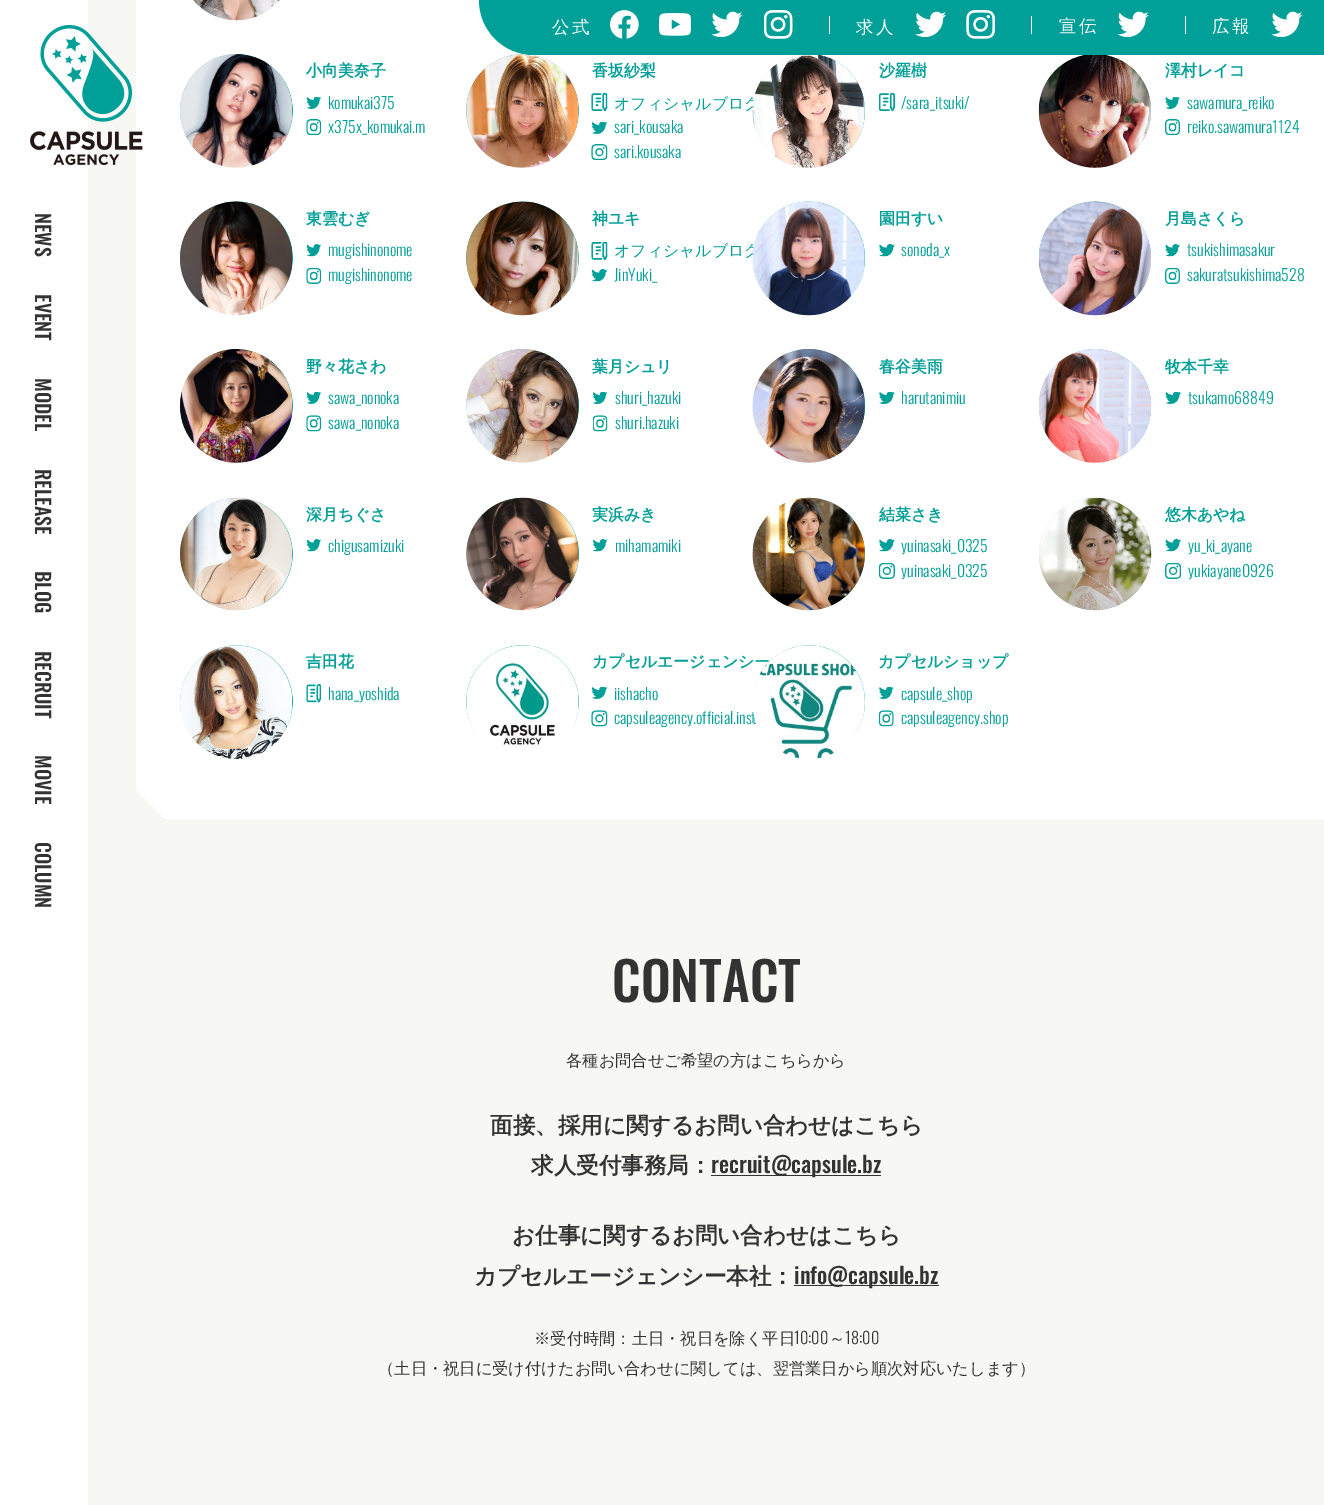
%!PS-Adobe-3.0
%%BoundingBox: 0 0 1324 1505
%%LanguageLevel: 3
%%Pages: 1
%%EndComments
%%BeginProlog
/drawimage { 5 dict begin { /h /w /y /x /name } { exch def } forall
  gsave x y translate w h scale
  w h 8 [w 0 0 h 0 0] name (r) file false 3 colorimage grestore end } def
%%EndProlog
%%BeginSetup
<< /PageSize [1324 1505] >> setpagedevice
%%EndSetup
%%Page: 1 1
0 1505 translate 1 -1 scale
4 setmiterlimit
0.969 0.969 0.957 setrgbcolor
0 0 1324 1505 rectfill
1 setgray
0 0 88 1505 rectfill
136 0 1188 819 rectfill
(images/1.raw) 30 25 113 140 drawimage
(images/11.raw) 479 0 1 1 drawimage
(images/16.raw) 466 54 113 113 drawimage
(images/17.raw) 466 54 113 114 drawimage
0 0.624 0.592 setrgbcolor
newpath 479 0 moveto 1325 0 lineto 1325 55 lineto 534 55 lineto 503.5 55 479 30.5 479 0 curveto closepath fill
(images/2.raw) 610 10 29 29 drawimage
(images/3.raw) 659 13 32 23 drawimage
(images/4.raw) 711 11 32 27 drawimage
(images/5.raw) 764 10 29 29 drawimage
1 setgray
829 16 1 18 rectfill
(images/6.raw) 915 11 31 27 drawimage
(images/7.raw) 966 10 29 29 drawimage
1031 16 1 18 rectfill
(images/8.raw) 1118 11 31 27 drawimage
1185 16 1 18 rectfill
(images/4.raw) 1271 11 32 27 drawimage
(images/9.raw) 196 0 83 20 drawimage
(images/10.raw) 193 0 87 21 drawimage
(images/12.raw) 180 54 113 113 drawimage
(images/13.raw) 180 54 113 114 drawimage
(images/14.raw) 306 97 15 12 drawimage
(images/15.raw) 306 119 15 16 drawimage
(images/18.raw) 591 93 17 19 drawimage
(images/19.raw) 591 122 17 12 drawimage
(images/20.raw) 591 144 17 16 drawimage
(images/23.raw) 879 93 16 19 drawimage
(images/24.raw) 1039 55 112 112 drawimage
(images/25.raw) 1038 55 113 113 drawimage
(images/26.raw) 1165 97 15 12 drawimage
(images/27.raw) 1165 119 15 16 drawimage
(images/28.raw) 180 201 113 114 drawimage
(images/29.raw) 180 201 113 115 drawimage
(images/30.raw) 306 244 15 13 drawimage
(images/31.raw) 306 268 15 16 drawimage
(images/32.raw) 466 201 113 114 drawimage
(images/33.raw) 466 201 113 115 drawimage
(images/34.raw) 591 242 17 18 drawimage
(images/35.raw) 591 269 17 13 drawimage
(images/38.raw) 879 244 16 13 drawimage
(images/39.raw) 1039 201 112 114 drawimage
(images/40.raw) 1038 201 113 115 drawimage
(images/41.raw) 1165 244 15 13 drawimage
(images/42.raw) 1165 268 15 16 drawimage
(images/12.raw) 180 349 113 113 drawimage
(images/43.raw) 180 349 113 114 drawimage
(images/44.raw) 306 392 15 12 drawimage
(images/45.raw) 306 415 15 17 drawimage
(images/46.raw) 466 349 113 113 drawimage
(images/47.raw) 466 349 113 114 drawimage
(images/48.raw) 593 392 15 12 drawimage
(images/49.raw) 593 415 15 17 drawimage
(images/50.raw) 753 349 112 113 drawimage
(images/51.raw) 752 349 113 114 drawimage
(images/52.raw) 879 392 16 12 drawimage
(images/53.raw) 1039 349 112 113 drawimage
(images/54.raw) 1038 349 114 114 drawimage
(images/55.raw) 1165 392 16 12 drawimage
(images/56.raw) 180 498 113 112 drawimage
(images/57.raw) 180 497 113 114 drawimage
(images/30.raw) 306 539 15 13 drawimage
(images/58.raw) 466 498 113 112 drawimage
(images/59.raw) 466 497 113 114 drawimage
(images/60.raw) 593 539 15 13 drawimage
(images/61.raw) 753 498 112 112 drawimage
(images/62.raw) 752 497 113 114 drawimage
(images/38.raw) 879 539 16 13 drawimage
(images/63.raw) 879 563 16 16 drawimage
(images/64.raw) 1039 498 112 112 drawimage
(images/65.raw) 1039 497 113 114 drawimage
(images/66.raw) 1165 539 16 13 drawimage
(images/67.raw) 1165 563 16 16 drawimage
(images/68.raw) 180 645 113 111 drawimage
(images/69.raw) 180 645 113 114 drawimage
(images/70.raw) 306 684 15 19 drawimage
(images/71.raw) 466 645 113 113 drawimage
(images/72.raw) 466 645 113 113 drawimage
(images/73.raw) 591 687 17 12 drawimage
(images/74.raw) 591 710 17 17 drawimage
(images/77.raw) 879 687 15 12 drawimage
(images/78.raw) 879 710 15 17 drawimage
0.969 0.969 0.957 setrgbcolor
newpath 136 819 moveto 136 790 lineto 165 819 lineto closepath fill
0.2 setgray
711 1175 170 1 rectfill
794 1285 145 1 rectfill
/WenQuanYiZenHei-Medium [17.5 0 0 -17.5 0 0] selectfont
1 setgray
552 33 moveto 2 0 (公式) ashow
856 33 moveto 2 0 (求人) ashow
1059 32 moveto 2 0 (宣伝) ashow
1212 32 moveto 2 0 (広報) ashow
/Oswald-Medium [20 0 0 -20 0 0] selectfont
0.2 setgray
gsave 35 213 translate 90 rotate 0 0 moveto (NEWS) show grestore
gsave 35 294 translate 90 rotate 0 0 moveto (EVENT) show grestore
gsave 35 378 translate 90 rotate 0 0 moveto (MODEL) show grestore
gsave 35 469 translate 90 rotate 0 0 moveto (RELEASE) show grestore
gsave 35 571 translate 90 rotate 0 0 moveto (BLOG) show grestore
gsave 35 651 translate 90 rotate 0 0 moveto (RECRUIT) show grestore
gsave 35 755 translate 90 rotate 0 0 moveto (MOVIE) show grestore
gsave 35 842 translate 90 rotate 0 0 moveto (COLUMN) show grestore
/WenQuanYiZenHei-Bold [15.9 0 0 -15.9 0 0] selectfont
0 0.624 0.592 setrgbcolor
306 76 moveto (小向美奈子) show
/Oswald-Light [15.9 0 0 -15.9 0 0] selectfont
328 109 moveto (komukai375) show
328 133 moveto (x375x_komukai.m) show
/WenQuanYiZenHei-Bold [15.9 0 0 -15.9 0 0] selectfont
592 76 moveto (香坂紗梨) show
/WenQuanYiZenHei-Medium [15.9 0 0 -15.9 0 0] selectfont
614 109 moveto (オフィシャルブログ) show
/Oswald-Light [15.9 0 0 -15.9 0 0] selectfont
614 133 moveto (sari_kousaka) show
614 158 moveto (sari.kousaka) show
(images/21.raw) 753 55 112 112 drawimage
(images/22.raw) 752 55 113 113 drawimage
/WenQuanYiZenHei-Bold [15.9 0 0 -15.9 0 0] selectfont
879 76 moveto (沙羅樹) show
/Oswald-Light [15.9 0 0 -15.9 0 0] selectfont
901 109 moveto (/sara_itsuki/) show
/WenQuanYiZenHei-Bold [15.9 0 0 -15.9 0 0] selectfont
1165 76 moveto (澤村レイコ) show
/Oswald-Light [15.9 0 0 -15.9 0 0] selectfont
1187 109 moveto (sawamura_reiko) show
1187 133 moveto (reiko.sawamura1124) show
/WenQuanYiZenHei-Bold [15.9 0 0 -15.9 0 0] selectfont
306 224 moveto (東雲むぎ) show
/Oswald-Light [15.9 0 0 -15.9 0 0] selectfont
328 256 moveto (mugishinonome) show
328 281 moveto (mugishinonome) show
/WenQuanYiZenHei-Bold [15.9 0 0 -15.9 0 0] selectfont
592 224 moveto (神ユキ) show
/WenQuanYiZenHei-Medium [15.9 0 0 -15.9 0 0] selectfont
614 256 moveto (オフィシャルブログ) show
/Oswald-Light [15.9 0 0 -15.9 0 0] selectfont
614 281 moveto (JinYuki_) show
(images/36.raw) 753 201 112 114 drawimage
(images/37.raw) 752 201 113 115 drawimage
/WenQuanYiZenHei-Bold [15.9 0 0 -15.9 0 0] selectfont
879 224 moveto (園田すい) show
/Oswald-Light [15.9 0 0 -15.9 0 0] selectfont
901 256 moveto (sonoda_x) show
/WenQuanYiZenHei-Bold [15.9 0 0 -15.9 0 0] selectfont
1165 224 moveto (月島さくら) show
/Oswald-Light [15.9 0 0 -15.9 0 0] selectfont
1187 256 moveto (tsukishimasakur) show
1187 281 moveto (sakuratsukishima528) show
/WenQuanYiZenHei-Bold [15.9 0 0 -15.9 0 0] selectfont
306 372 moveto (野々花さわ) show
/Oswald-Light [15.9 0 0 -15.9 0 0] selectfont
328 404 moveto (sawa_nonoka) show
328 429 moveto (sawa_nonoka) show
/WenQuanYiZenHei-Bold [15.9 0 0 -15.9 0 0] selectfont
592 372 moveto (葉月シュリ) show
/Oswald-Light [15.9 0 0 -15.9 0 0] selectfont
615 404 moveto (shuri_hazuki) show
615 429 moveto (shuri.hazuki) show
/WenQuanYiZenHei-Bold [15.9 0 0 -15.9 0 0] selectfont
879 372 moveto (春谷美雨) show
/Oswald-Light [15.9 0 0 -15.9 0 0] selectfont
901 404 moveto (harutanimiu) show
/WenQuanYiZenHei-Bold [15.9 0 0 -15.9 0 0] selectfont
1165 372 moveto (牧本千幸) show
/Oswald-Light [15.9 0 0 -15.9 0 0] selectfont
1188 404 moveto (tsukamo68849) show
/WenQuanYiZenHei-Bold [15.9 0 0 -15.9 0 0] selectfont
306 520 moveto (深月ちぐさ) show
/Oswald-Light [15.9 0 0 -15.9 0 0] selectfont
328 552 moveto (chigusamizuki) show
/WenQuanYiZenHei-Bold [15.9 0 0 -15.9 0 0] selectfont
592 520 moveto (実浜みき) show
/Oswald-Light [15.9 0 0 -15.9 0 0] selectfont
615 552 moveto (mihamamiki) show
/WenQuanYiZenHei-Bold [15.9 0 0 -15.9 0 0] selectfont
879 520 moveto (結菜さき) show
/Oswald-Light [15.9 0 0 -15.9 0 0] selectfont
901 552 moveto (yuinasaki_0325) show
901 577 moveto (yuinasaki_0325) show
/WenQuanYiZenHei-Bold [15.9 0 0 -15.9 0 0] selectfont
1165 520 moveto (悠木あやね) show
/Oswald-Light [15.9 0 0 -15.9 0 0] selectfont
1188 552 moveto (yu_ki_ayane) show
1188 577 moveto (yukiayane0926) show
/WenQuanYiZenHei-Bold [15.9 0 0 -15.9 0 0] selectfont
306 667 moveto (吉田花) show
/Oswald-Light [15.9 0 0 -15.9 0 0] selectfont
328 700 moveto (hana_yoshida) show
/WenQuanYiZenHei-Bold [15.9 0 0 -15.9 0 0] selectfont
592 667 moveto (カプセルエージェンシー) show
/Oswald-Light [15.9 0 0 -15.9 0 0] selectfont
614 700 moveto (iishacho) show
614 724 moveto (capsuleagency.official.inst) show
(images/75.raw) 753 645 112 112 drawimage
(images/76.raw) 753 645 112 114 drawimage
/WenQuanYiZenHei-Bold [15.9 0 0 -15.9 0 0] selectfont
878 667 moveto (カプセルショップ) show
/Oswald-Light [15.9 0 0 -15.9 0 0] selectfont
901 700 moveto (capsule_shop) show
901 724 moveto (capsuleagency.shop) show
/Oswald-Medium [53 0 0 -53 0 0] selectfont
0.2 setgray
612 1002 moveto (CONTACT) show
/WenQuanYiZenHei-Medium [16.25 0 0 -16.25 0 0] selectfont
566 1066 moveto (各種お問合せご希望の方はこちらから) show
/WenQuanYiZenHei-Bold [22.5 0 0 -22.5 0 0] selectfont
490 1133 moveto (面接、採用に関するお問い合わせはこちら) show
531 1173 moveto (求人受付事務局：) show
/Oswald-Medium [22.5 0 0 -22.5 0 0] selectfont
711 1173 moveto (recruit@capsule.bz) show
/WenQuanYiZenHei-Bold [22.5 0 0 -22.5 0 0] selectfont
512 1243 moveto (お仕事に関するお問い合わせはこちら) show
474 1284 moveto (カプセルエージェンシー本社：) show
/Oswald-Medium [22.5 0 0 -22.5 0 0] selectfont
794 1284 moveto (info@capsule.bz) show
/WenQuanYiZenHei-Medium [16.25 0 0 -16.25 0 0] selectfont
534 1344 moveto (※受付時間：土日・祝日を除く平日) show
/Oswald-Light [16.25 0 0 -16.25 0 0] selectfont
794 1344 moveto (10:00) show
/WenQuanYiZenHei-Medium [16.25 0 0 -16.25 0 0] selectfont
829 1344 moveto (～) show
/Oswald-Light [16.25 0 0 -16.25 0 0] selectfont
845 1344 moveto (18:00) show
/WenQuanYiZenHei-Medium [16.25 0 0 -16.25 0 0] selectfont
378 1374 moveto (（土日・祝日に受け付けたお問い合わせに関しては、翌営業日から順次対応いたします）) show
showpage
%%EOF
